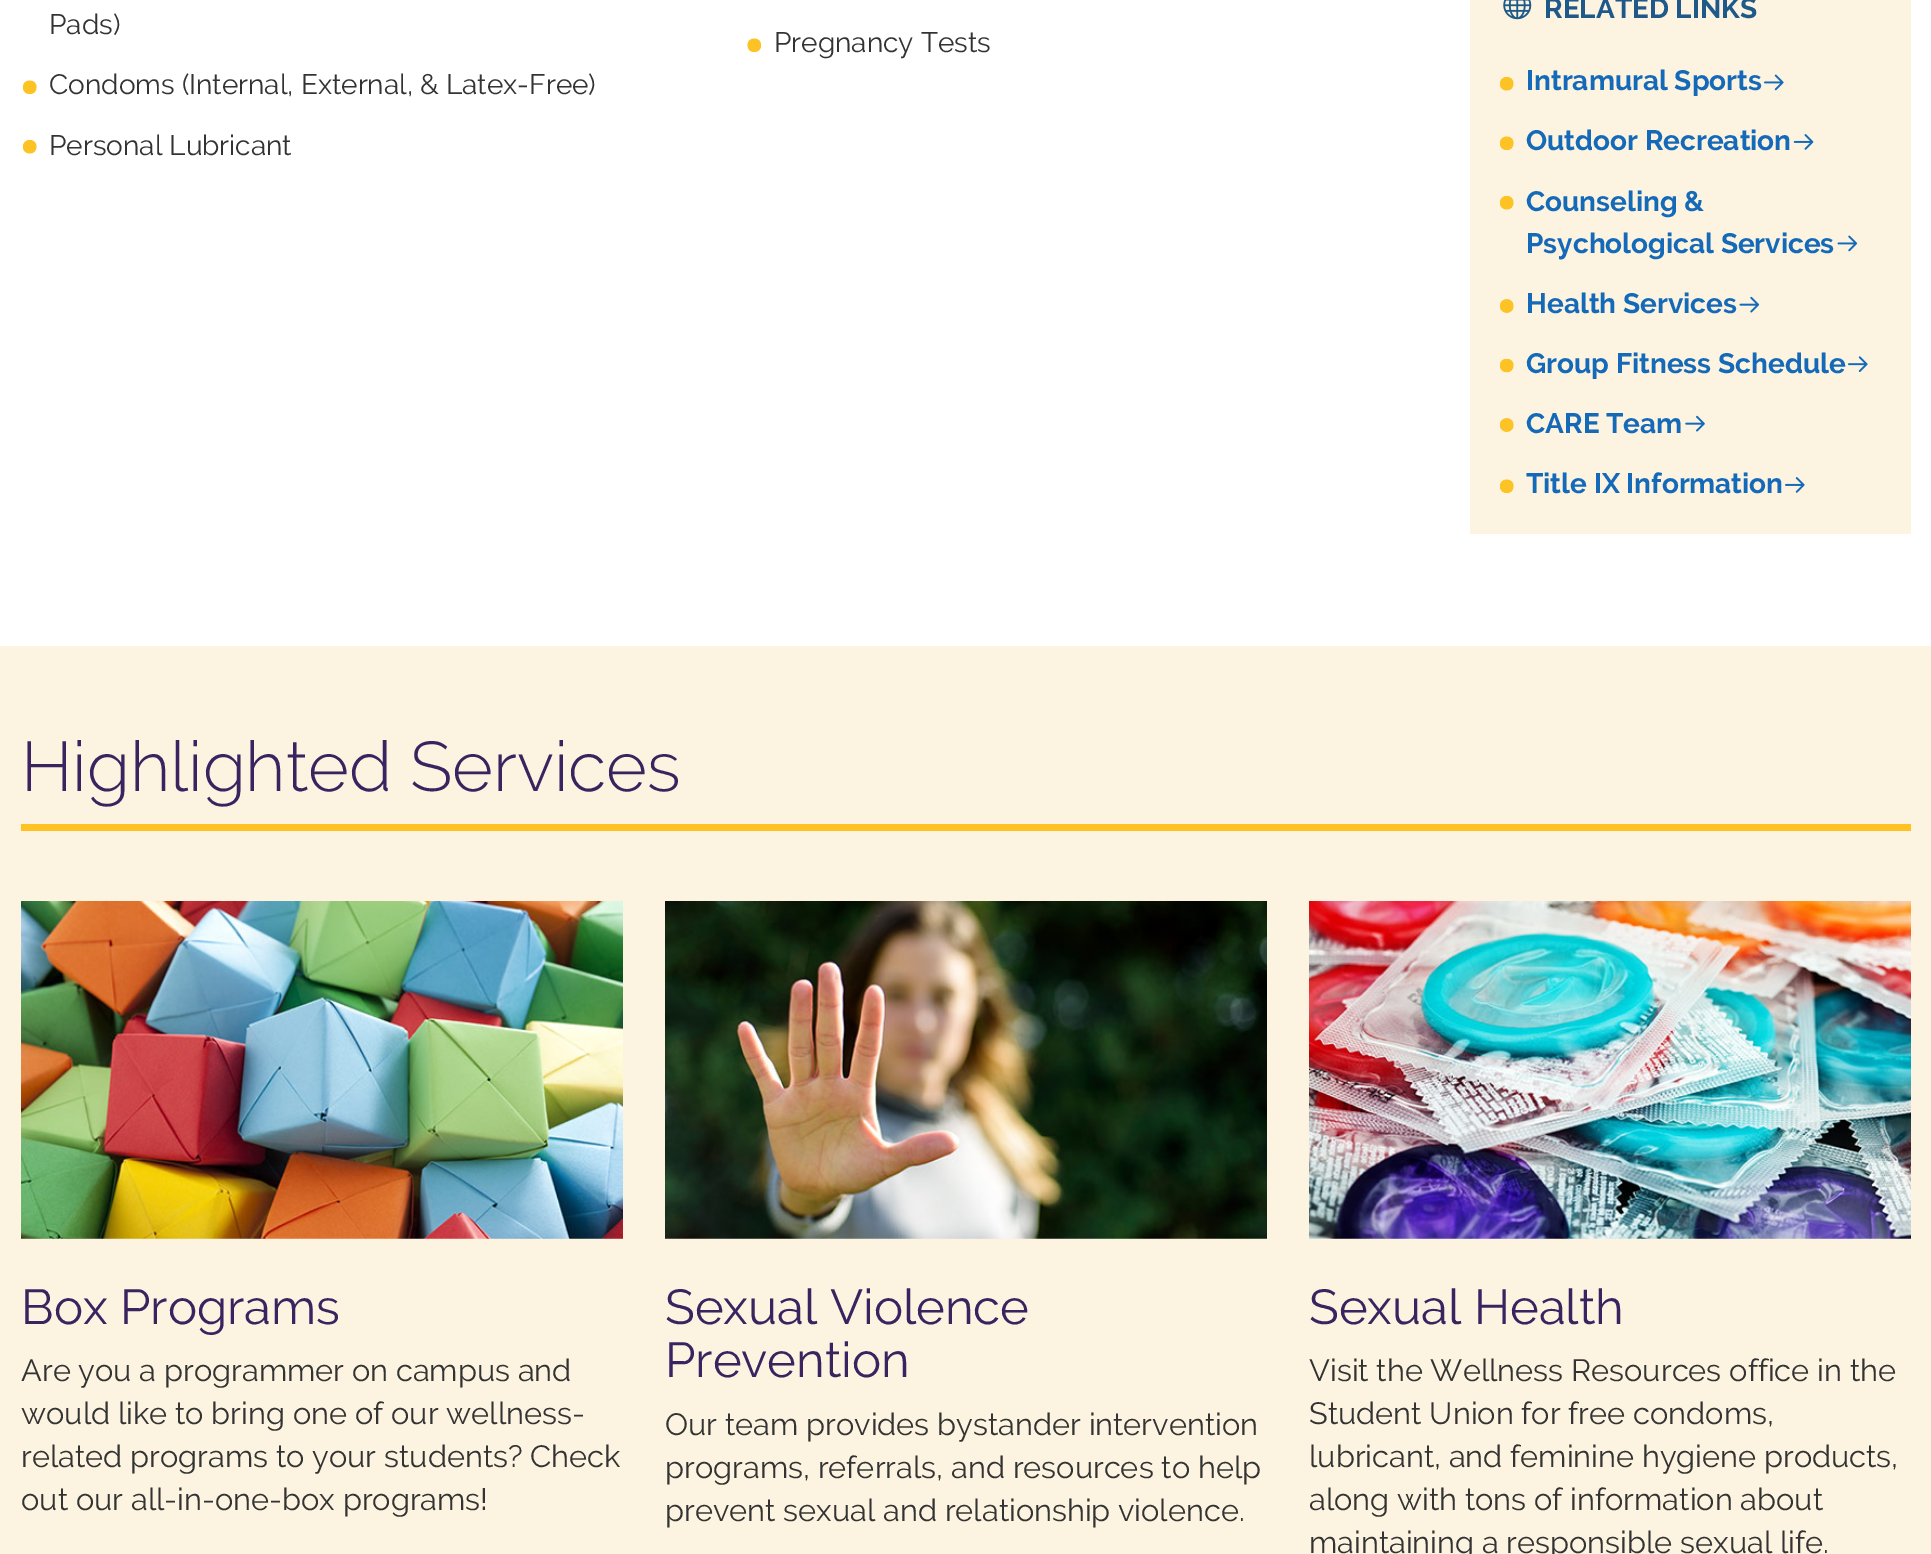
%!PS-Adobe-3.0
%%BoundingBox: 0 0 1931 1554
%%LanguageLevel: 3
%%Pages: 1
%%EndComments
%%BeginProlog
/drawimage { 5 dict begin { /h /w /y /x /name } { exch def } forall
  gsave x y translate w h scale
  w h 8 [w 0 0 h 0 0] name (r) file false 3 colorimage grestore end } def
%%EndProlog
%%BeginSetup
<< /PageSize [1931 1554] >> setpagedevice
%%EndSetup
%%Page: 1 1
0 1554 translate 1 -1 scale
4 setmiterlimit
1 setgray
0 0 1931 1554 rectfill
(images/1.raw) 23 80 14 14 drawimage
(images/2.raw) 23 140 14 14 drawimage
(images/3.raw) 747 38 14 14 drawimage
0.988 0.957 0.878 setrgbcolor
1470 0 441 534 rectfill
(images/4.raw) 1503 0 29 20 drawimage
(images/5.raw) 1500 77 14 14 drawimage
(images/6.raw) 1764 74 20 17 drawimage
(images/7.raw) 1500 136 14 14 drawimage
(images/8.raw) 1793 134 21 16 drawimage
(images/5.raw) 1500 196 14 14 drawimage
(images/9.raw) 1837 235 21 17 drawimage
(images/10.raw) 1500 299 14 14 drawimage
(images/11.raw) 1739 296 21 17 drawimage
(images/12.raw) 1500 359 14 14 drawimage
(images/13.raw) 1848 356 20 16 drawimage
(images/10.raw) 1500 418 14 14 drawimage
(images/14.raw) 1685 415 20 17 drawimage
(images/7.raw) 1500 479 14 14 drawimage
(images/15.raw) 1785 477 20 16 drawimage
0 646 1931 908 rectfill
1 0.761 0.133 setrgbcolor
21 824 1890 7 rectfill
(images/16.raw) 21 901 602 338 drawimage
(images/17.raw) 665 901 602 338 drawimage
(images/18.raw) 1309 901 602 338 drawimage
/Raleway-Regular [28 0 0 -28 0 0] selectfont
0.2 setgray
49 34 moveto (Pads\)) show
49 94 moveto (Condoms \(Internal, External, & Latex-Free\)) show
49 155 moveto (Personal Lubricant) show
774 52 moveto (Pregnancy Tests) show
/Raleway-Bold [28 0 0 -28 0 0] selectfont
0.118 0.349 0.537 setrgbcolor
1544 18 moveto (RELATED LINKS) show
0.078 0.412 0.722 setrgbcolor
1526 90 moveto (Intramural Sports) show
1526 150 moveto (Outdoor Recreation) show
1526 211 moveto (Counseling &) show
1526 253 moveto (Psychological Services) show
1526 313 moveto (Health Services) show
1526 373 moveto (Group Fitness Schedule) show
1526 433 moveto (CARE Team) show
1526 493 moveto (Title IX Information) show
/Raleway-Light [70 0 0 -70 0 0] selectfont
0.231 0.137 0.376 setrgbcolor
21 791 moveto (Highlighted Services) show
/Raleway-Regular [49 0 0 -49 0 0] selectfont
21 1324 moveto (Box Programs) show
/Raleway-Regular [30.75 0 0 -30.75 0 0] selectfont
0.2 setgray
21 1381 moveto (Are you a programmer on campus and) show
21 1424 moveto (would like to bring one of our wellness-) show
21 1467 moveto (related programs to your students? Check) show
21 1510 moveto (out our all-in-one-box programs!) show
/Raleway-Regular [49 0 0 -49 0 0] selectfont
0.231 0.137 0.376 setrgbcolor
665 1324 moveto (Sexual Violence) show
665 1377 moveto (Prevention) show
/Raleway-Regular [30.75 0 0 -30.75 0 0] selectfont
0.2 setgray
665 1435 moveto (Our team provides bystander intervention) show
665 1478 moveto (programs, referrals, and resources to help) show
665 1521 moveto (prevent sexual and relationship violence.) show
/Raleway-Regular [49 0 0 -49 0 0] selectfont
0.231 0.137 0.376 setrgbcolor
1309 1324 moveto (Sexual Health) show
/Raleway-Regular [30.75 0 0 -30.75 0 0] selectfont
0.2 setgray
1309 1381 moveto (Visit the Wellness Resources office in the) show
1309 1424 moveto (Student Union for free condoms,) show
1309 1467 moveto (lubricant, and feminine hygiene products,) show
1309 1510 moveto (along with tons of information about) show
1309 1553 moveto (maintaining a responsible sexual life.) show
showpage
%%EOF
